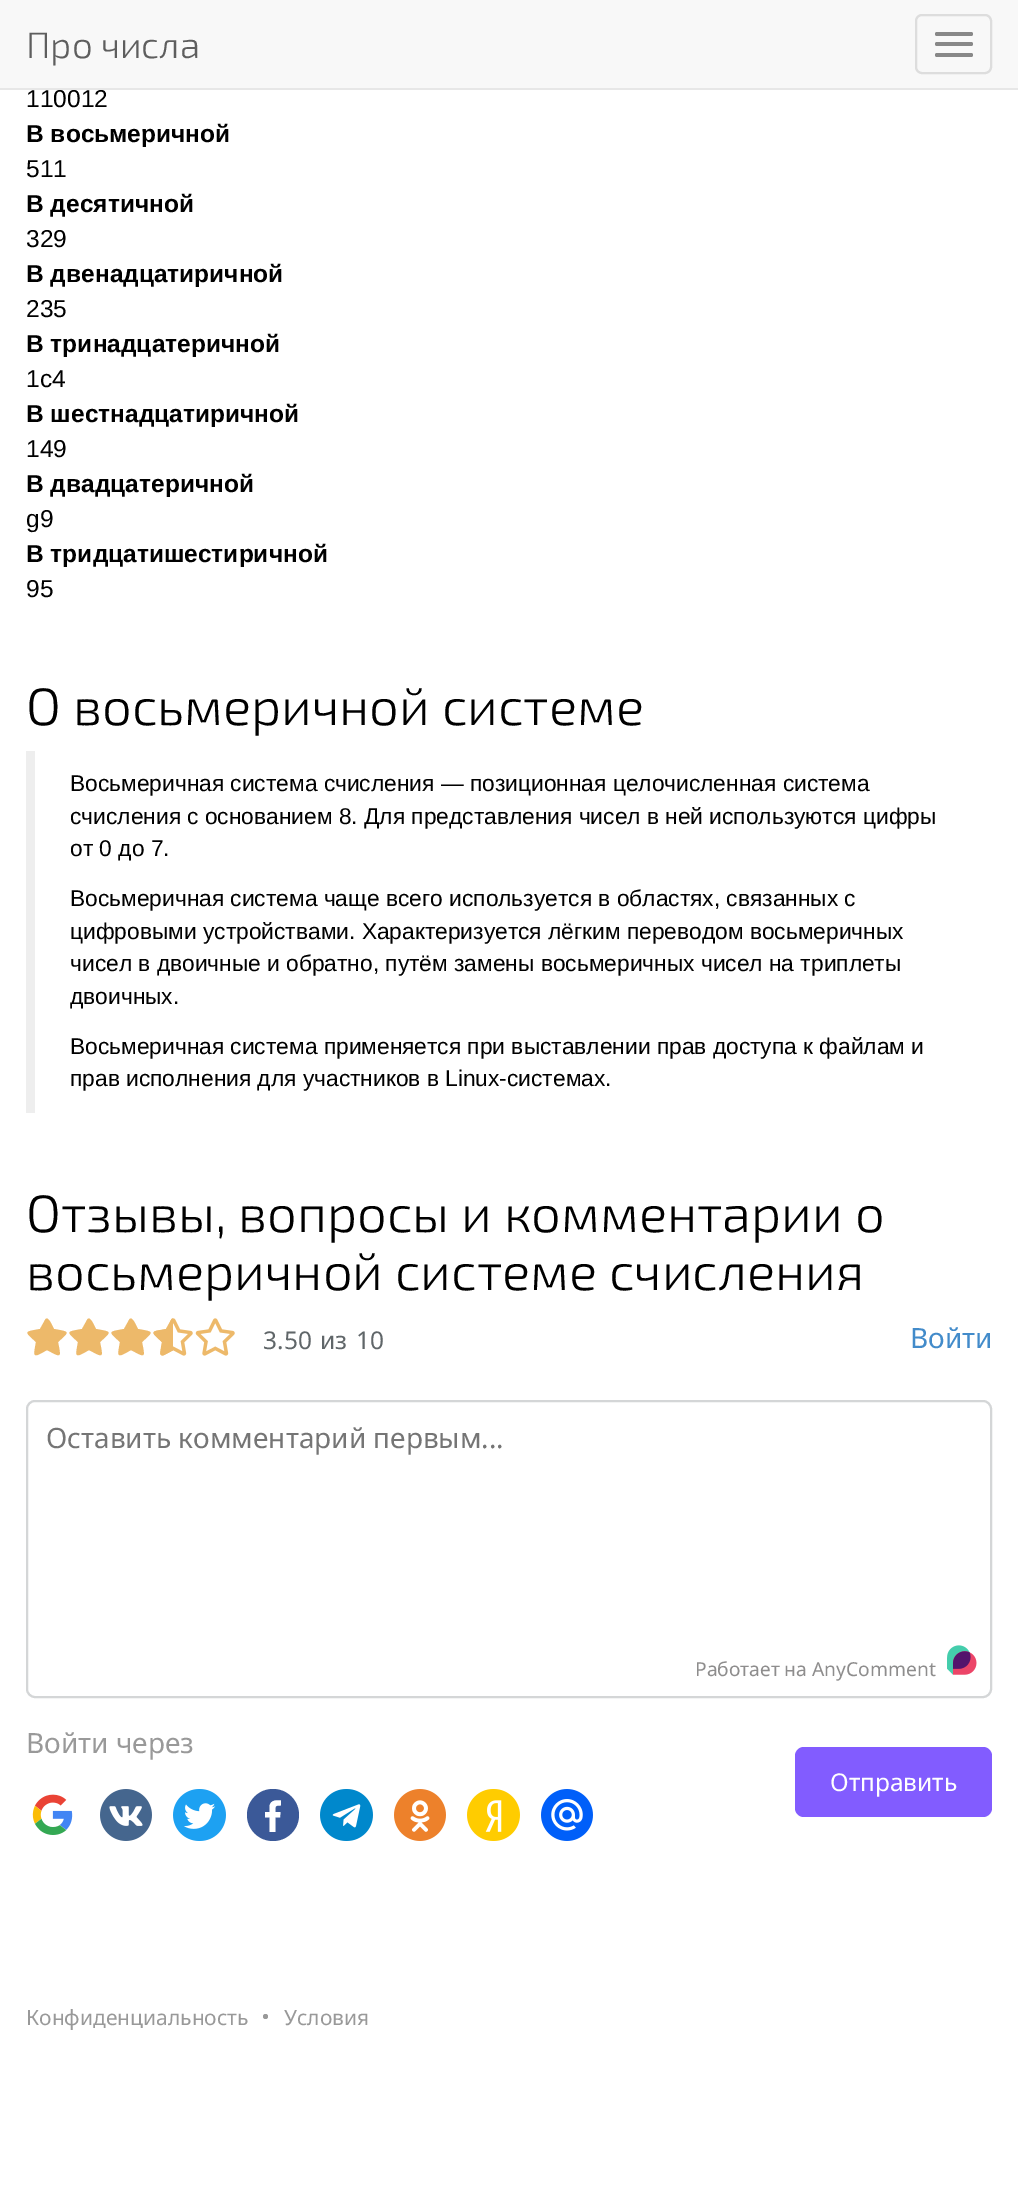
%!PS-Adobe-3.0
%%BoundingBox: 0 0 1018 2194
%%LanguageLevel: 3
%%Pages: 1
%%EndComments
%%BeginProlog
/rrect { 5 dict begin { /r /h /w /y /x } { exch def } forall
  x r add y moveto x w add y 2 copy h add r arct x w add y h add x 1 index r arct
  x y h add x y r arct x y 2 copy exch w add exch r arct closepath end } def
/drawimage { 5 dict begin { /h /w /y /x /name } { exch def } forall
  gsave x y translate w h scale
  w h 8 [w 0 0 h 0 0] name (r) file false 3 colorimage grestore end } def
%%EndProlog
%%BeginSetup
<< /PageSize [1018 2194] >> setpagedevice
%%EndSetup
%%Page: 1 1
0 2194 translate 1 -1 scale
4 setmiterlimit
1 setgray
0 0 1018 2194 rectfill
0.973 setgray
0 0 1018 88 rectfill
0.867 setgray
2 setlinewidth
916 15 75 58 6 rrect stroke
0.533 setgray
935 32 38 4 2 rrect fill
935 42 38 4 2 rrect fill
935 53 38 4 2 rrect fill
0.933 setgray
26 751 9 362 rectfill
0.929 0.725 0.416 setrgbcolor
newpath 45 1320 moveto 40 1329 lineto 24 1332 24 1331 36 1342 curveto 33 1358 33 1358 47 1350 curveto 62 1358 61 1358 58 1342 curveto 70 1331 70 1332 54 1329 curveto 53 1328 48 1314 45 1320 curveto closepath fill
newpath 87 1320 moveto 82 1329 lineto 66 1332 66 1331 78 1342 curveto 75 1358 75 1358 89 1350 curveto 104 1358 103 1358 100 1342 curveto 112 1331 112 1332 96 1329 curveto 95 1328 90 1314 87 1320 curveto closepath fill
newpath 129 1320 moveto 124 1329 lineto 108 1332 108 1331 120 1342 curveto 117 1358 117 1358 131 1350 curveto 146 1358 145 1358 142 1342 curveto 154 1331 154 1332 138 1329 curveto 137 1328 132 1314 129 1320 curveto closepath fill
(images/1.raw) 153 1318 40 38 drawimage
gsave
152 1316 21 49 rectclip
newpath 171 1320 moveto 166 1329 lineto 150 1332 150 1331 162 1342 curveto 159 1358 159 1358 173 1350 curveto 188 1358 187 1358 184 1342 curveto 196 1331 196 1332 180 1329 curveto 179 1328 174 1314 171 1320 curveto closepath fill
grestore
(images/1.raw) 195 1318 40 38 drawimage
0.831 0.839 0.843 setrgbcolor
27 1401 964 296 8 rrect stroke
(images/2.raw) 947 1645 30 30 drawimage
(images/3.raw) 32 1794 41 41 drawimage
(images/4.raw) 100 1789 52 52 drawimage
(images/5.raw) 173 1789 53 52 drawimage
0.231 0.349 0.596 setrgbcolor
newpath 273 1815 26 0 360 arc closepath fill
1 setgray
newpath 269.5 1832 moveto 275.5 1832 lineto 275.5 1817.5 lineto 280 1817.5 lineto 280.5 1812 lineto 275.5 1812 lineto 275.5 1806 274.5 1805.5 281 1805.5 curveto 281 1800.5 lineto 276.5 1800 270.5 1800 269.5 1806 curveto 269.5 1812 lineto 265 1812 lineto 265 1817.5 lineto 269.5 1817.5 lineto closepath fill
(images/6.raw) 320 1789 53 52 drawimage
(images/7.raw) 394 1789 52 52 drawimage
(images/8.raw) 467 1789 53 52 drawimage
(images/9.raw) 541 1789 52 52 drawimage
0.51 0.361 1 setrgbcolor
795 1747 197 70 9 rrect fill
0.6 setgray
newpath 265.5 2016.5 2.5 0 360 arc closepath fill
/Exo2-Light [36.75 0 0 -36.75 0 0] selectfont
0.369 setgray
26 58 moveto (Про числа) show
/LiberationSans-Regular [24.5 0 0 -24.5 0 0] selectfont
0 setgray
26 107 moveto (110012) show
0.906 setgray
0 88 1018 2 rectfill
/LiberationSans-Bold [24.5 0 0 -24.5 0 0] selectfont
0 setgray
26 142 moveto (В восьмеричной) show
/LiberationSans-Regular [24.5 0 0 -24.5 0 0] selectfont
26 177 moveto (511) show
/LiberationSans-Bold [24.5 0 0 -24.5 0 0] selectfont
26 212 moveto (В десятичной) show
/LiberationSans-Regular [24.5 0 0 -24.5 0 0] selectfont
26 247 moveto (329) show
/LiberationSans-Bold [24.5 0 0 -24.5 0 0] selectfont
26 282 moveto (В двенадцатиричной) show
/LiberationSans-Regular [24.5 0 0 -24.5 0 0] selectfont
26 317 moveto (235) show
/LiberationSans-Bold [24.5 0 0 -24.5 0 0] selectfont
26 352 moveto (В тринадцатеричной) show
/LiberationSans-Regular [24.5 0 0 -24.5 0 0] selectfont
26 387 moveto (1c4) show
/LiberationSans-Bold [24.5 0 0 -24.5 0 0] selectfont
26 422 moveto (В шестнадцатиричной) show
/LiberationSans-Regular [24.5 0 0 -24.5 0 0] selectfont
26 457 moveto (149) show
/LiberationSans-Bold [24.5 0 0 -24.5 0 0] selectfont
26 492 moveto (В двадцатеричной) show
/LiberationSans-Regular [24.5 0 0 -24.5 0 0] selectfont
26 527 moveto (g9) show
/LiberationSans-Bold [24.5 0 0 -24.5 0 0] selectfont
26 562 moveto (В тридцатишестиричной) show
/LiberationSans-Regular [24.5 0 0 -24.5 0 0] selectfont
26 597 moveto (95) show
/Exo2-Light [52.5 0 0 -52.5 0 0] selectfont
26 725 moveto (О восьмеричной системе) show
/LiberationSans-Regular [22.75 0 0 -22.75 0 0] selectfont
70 791 moveto (Восьмеричная система счисления — позиционная целочисленная система) show
70 824 moveto (счисления с основанием 8. Для представления чисел в ней используются цифры) show
70 856 moveto (от 0 до 7.) show
70 906 moveto (Восьмеричная система чаще всего используется в областях, связанных с) show
70 939 moveto (цифровыми устройствами. Характеризуется лёгким переводом восьмеричных) show
70 971 moveto (чисел в двоичные и обратно, путём замены восьмеричных чисел на триплеты) show
70 1004 moveto (двоичных.) show
70 1054 moveto (Восьмеричная система применяется при выставлении прав доступа к файлам и) show
70 1086 moveto (прав исполнения для участников в Linux-системах.) show
/Exo2-Light [52.5 0 0 -52.5 0 0] selectfont
26 1232 moveto (Отзывы, вопросы и комментарии о) show
26 1290 moveto (восьмеричной системе счисления) show
/NotoSans-Regular [24.5 0 0 -24.5 0 0] selectfont
0.376 0.4 0.412 setrgbcolor
263 1349 moveto (3.50) show
320 1349 moveto (из) show
356 1349 moveto (10) show
/NotoSans-Regular [28 0 0 -28 0 0] selectfont
0.259 0.545 0.792 setrgbcolor
910 1348 moveto (Войти) show
0.459 setgray
46 1448 moveto (Оставить комментарий первым...) show
/NotoSans-Regular [19.25 0 0 -19.25 0 0] selectfont
0.557 0.553 0.553 setrgbcolor
695 1676 moveto (Работает на AnyComment) show
/NotoSans-Regular [28 0 0 -28 0 0] selectfont
0.6 setgray
26 1753 moveto (Войти через) show
/NotoSans-Regular [24.5 0 0 -24.5 0 0] selectfont
1 setgray
830 1791 moveto (Отправить) show
/NotoSans-Regular [21 0 0 -21 0 0] selectfont
0.6 setgray
26 2025 moveto (Конфиденциальность) show
284 2025 moveto (Условия) show
showpage
%%EOF
